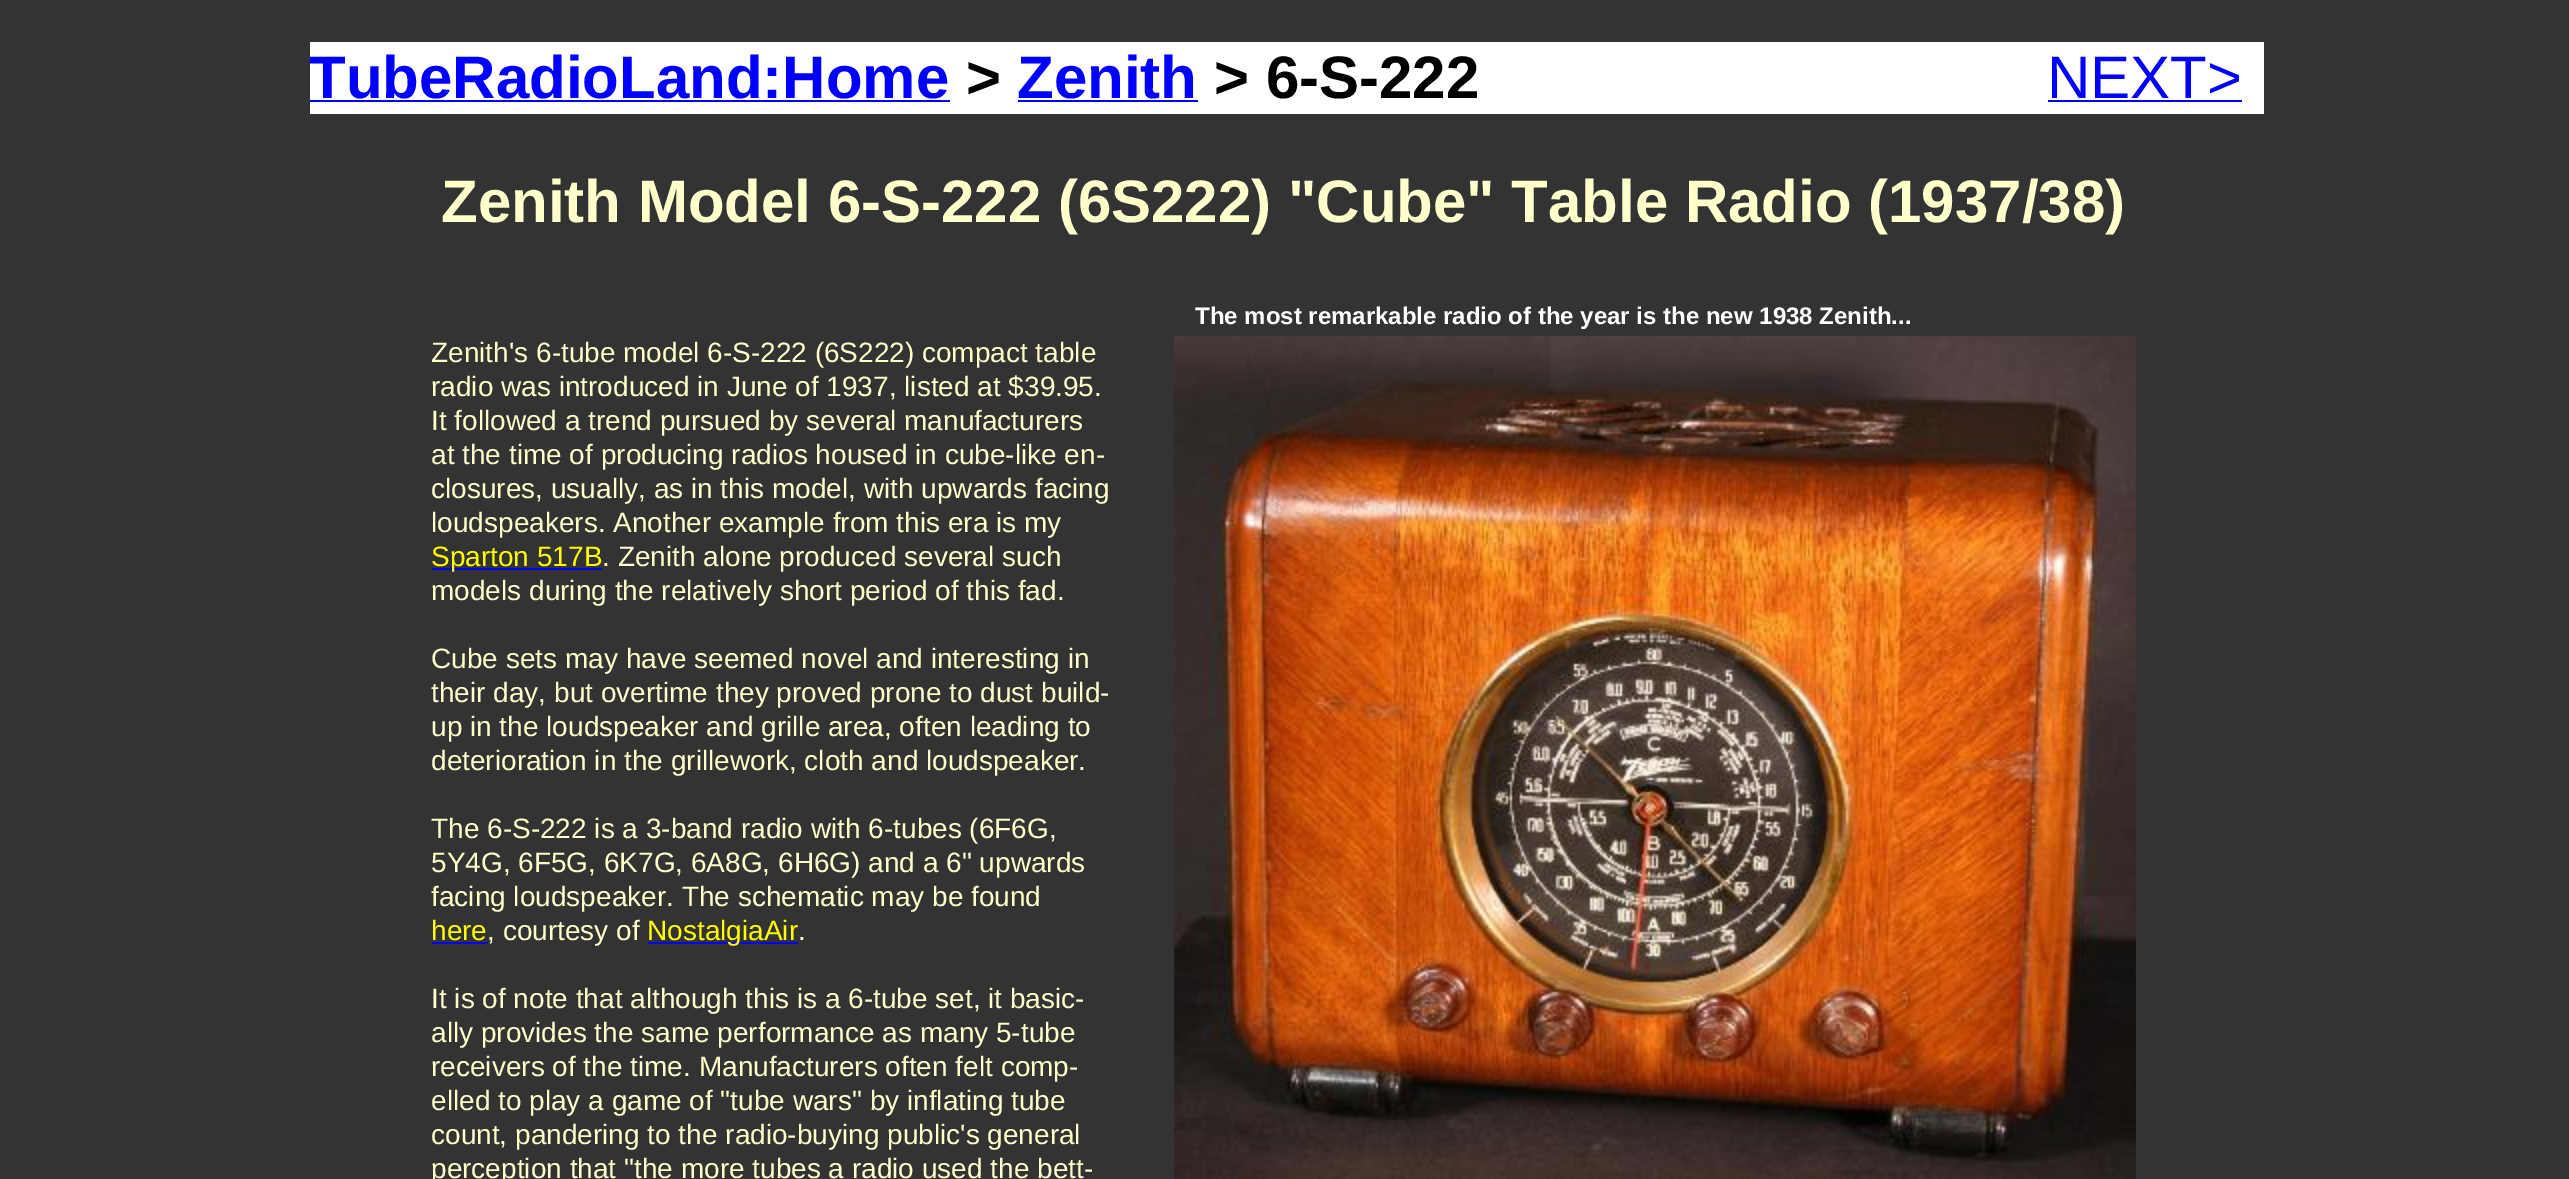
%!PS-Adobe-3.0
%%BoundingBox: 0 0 2569 1179
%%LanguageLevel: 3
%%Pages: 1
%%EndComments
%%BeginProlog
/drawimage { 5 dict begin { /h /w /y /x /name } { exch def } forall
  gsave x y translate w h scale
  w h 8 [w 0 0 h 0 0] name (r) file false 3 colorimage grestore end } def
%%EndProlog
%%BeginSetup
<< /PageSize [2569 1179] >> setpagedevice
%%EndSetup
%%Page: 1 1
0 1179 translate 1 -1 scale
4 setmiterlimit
0.2 setgray
0 0 2569 1179 rectfill
1 setgray
310 42 1954 72 rectfill
0 0 1 setrgbcolor
310 100 640 2 rectfill
1018 100 180 2 rectfill
2048 100 194 2 rectfill
432 568 170 2 rectfill
432 942 56 2 rectfill
648 942 150 2 rectfill
(images/1.raw) 1174 336 962 843 drawimage
/LiberationSans-Bold [60 0 0 -60 0 0] selectfont
309 98 moveto (TubeRadioLand:Home) show
0 setgray
966 98 moveto (>) show
0 0 1 setrgbcolor
1017 98 moveto (Zenith) show
0 setgray
1214 98 moveto (> 6-S-222) show
/LiberationSans-Regular [60 0 0 -60 0 0] selectfont
0 0 1 setrgbcolor
2047 98 moveto (NEXT>) show
/LiberationSans-Bold [60 0 0 -60 0 0] selectfont
1 1 0.8 setrgbcolor
441 222 moveto (Zenith Model 6-S-222 \(6S222\) "Cube" Table Radio \(1937/38\)) show
/LiberationSans-Bold [24 0 0 -24 0 0] selectfont
1 setgray
1195 324 moveto (The most remarkable radio of the year is the new 1938 Zenith...) show
/LiberationSans-Regular [28 0 0 -28 0 0] selectfont
1 1 0.8 setrgbcolor
431 362 moveto (Zenith's 6-tube model 6-S-222 \(6S222\) compact table) show
431 396 moveto (radio was introduced in June of 1937, listed at $39.95.) show
431 430 moveto (It followed a trend pursued by several manufacturers) show
431 464 moveto (at the time of producing radios housed in cube-like en-) show
431 498 moveto (closures, usually, as in this model, with upwards facing) show
431 532 moveto (loudspeakers. Another example from this era is my) show
1 1 0 setrgbcolor
431 566 moveto (Sparton 517B) show
1 1 0.8 setrgbcolor
602 566 moveto (. Zenith alone produced several such) show
431 600 moveto (models during the relatively short period of this fad.) show
431 668 moveto (Cube sets may have seemed novel and interesting in) show
431 702 moveto (their day, but overtime they proved prone to dust build-) show
431 736 moveto (up in the loudspeaker and grille area, often leading to) show
431 770 moveto (deterioration in the grillework, cloth and loudspeaker.) show
431 838 moveto (The 6-S-222 is a 3-band radio with 6-tubes \(6F6G,) show
431 872 moveto (5Y4G, 6F5G, 6K7G, 6A8G, 6H6G\) and a 6" upwards) show
431 906 moveto (facing loudspeaker. The schematic may be found) show
1 1 0 setrgbcolor
431 940 moveto (here) show
1 1 0.8 setrgbcolor
487 940 moveto (, courtesy of) show
1 1 0 setrgbcolor
647 940 moveto (NostalgiaAir) show
1 1 0.8 setrgbcolor
798 940 moveto (.) show
431 1008 moveto (It is of note that although this is a 6-tube set, it basic-) show
431 1042 moveto (ally provides the same performance as many 5-tube) show
431 1076 moveto (receivers of the time. Manufacturers often felt comp-) show
431 1110 moveto (elled to play a game of "tube wars" by inflating tube) show
431 1144 moveto (count, pandering to the radio-buying public's general) show
431 1178 moveto (perception that "the more tubes a radio used the bett-) show
showpage
%%EOF
